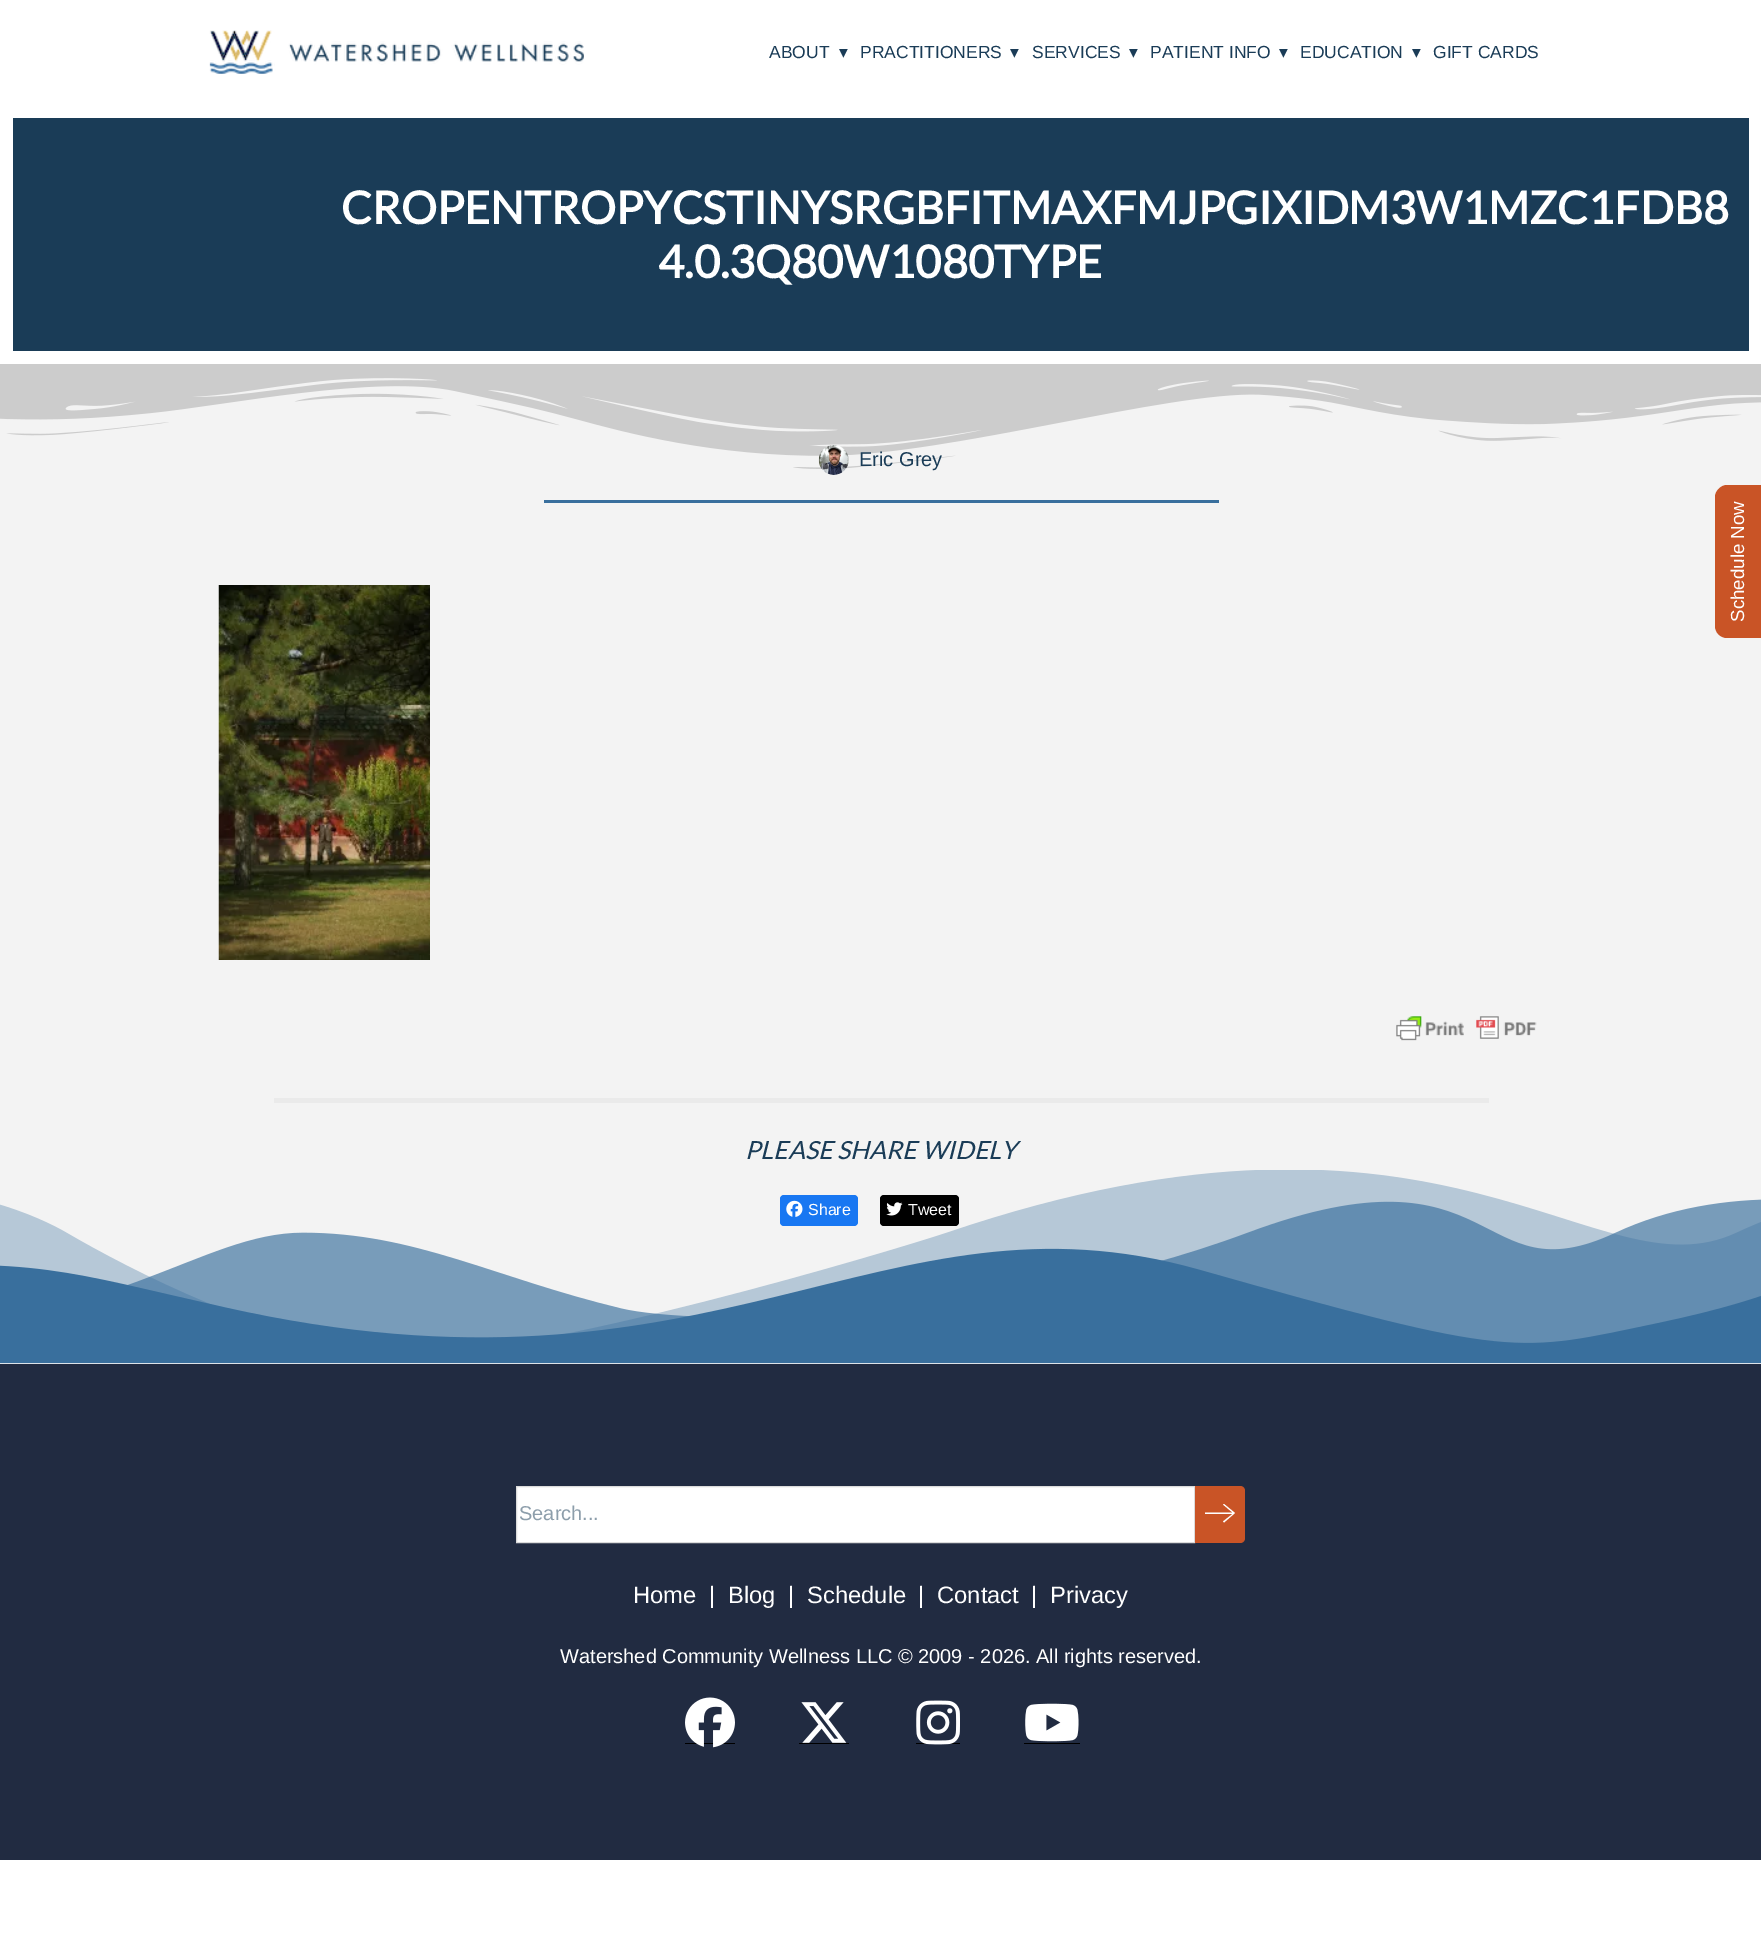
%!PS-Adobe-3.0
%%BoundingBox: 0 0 1761 1957
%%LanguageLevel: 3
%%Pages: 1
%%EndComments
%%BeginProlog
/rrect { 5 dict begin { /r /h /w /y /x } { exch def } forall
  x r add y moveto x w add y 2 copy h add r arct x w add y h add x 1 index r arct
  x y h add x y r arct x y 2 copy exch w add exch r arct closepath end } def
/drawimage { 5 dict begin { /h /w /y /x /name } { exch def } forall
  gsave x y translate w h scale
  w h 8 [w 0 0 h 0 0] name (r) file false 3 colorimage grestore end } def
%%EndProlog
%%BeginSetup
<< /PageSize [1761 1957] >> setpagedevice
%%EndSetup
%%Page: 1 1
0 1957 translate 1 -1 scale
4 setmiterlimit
1 setgray
0 0 1761 1957 rectfill
(images/1.raw) 209 30 375 44 drawimage
0.102 0.235 0.341 setrgbcolor
13 118 1736 233 rectfill
0.953 setgray
0 378 1761 986 rectfill
(images/2.raw) 0 364 1761 105 drawimage
(images/3.raw) 818 445 31 30 drawimage
0.224 0.435 0.616 setrgbcolor
544 500 675 3 rectfill
(images/4.raw) 218 585 212 375 drawimage
(images/5.raw) 1396 1016 141 25 drawimage
0.918 setgray
274 1098 1215 5 rectfill
(images/8.raw) 0 1170 1761 194 drawimage
0.094 0.467 0.949 setrgbcolor
780 1195 78 31 4 rrect fill
(images/6.raw) 786 1200 17 17 drawimage
0 setgray
880 1195 79 31 4 rrect fill
(images/7.raw) 886 1202 17 14 drawimage
0.788 0.329 0.149 setrgbcolor
newpath 1715 626 moveto 1715 497 lineto 1715 491 1721 485 1727 485 curveto 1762 485 lineto 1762 638 lineto 1727 638 lineto 1721 638 1715 633 1715 626 curveto closepath fill
0.129 0.169 0.255 setrgbcolor
0 1364 1761 496 rectfill
1 setgray
newpath 516.5 1486.5 moveto 1194.5 1486.5 lineto 1194.5 1542.5 lineto 516.5 1542.5 lineto closepath gsave fill grestore
0.859 setgray
stroke
0.788 0.329 0.149 setrgbcolor
newpath 1195 1486 moveto 1240 1486 lineto 1243 1486 1245 1488 1245 1491 curveto 1245 1538 lineto 1245 1541 1243 1543 1240 1543 curveto 1195 1543 lineto closepath fill
1 setgray
newpath 1232.5 1514 moveto 1223 1521.5 lineto 1224 1522.5 lineto 1235 1513 lineto 1224 1504 lineto 1223 1504.5 lineto 1232.5 1512.5 lineto 1205 1512.5 lineto 1205 1514 lineto closepath fill
0 setgray
685 1743 50 1 rectfill
(images/9.raw) 685 1697 50 51 drawimage
(images/10.raw) 801 1702 46 41 drawimage
799 1743 50 1 rectfill
916 1743 44 1 rectfill
(images/11.raw) 916 1700 44 45 drawimage
(images/12.raw) 1025 1703 54 39 drawimage
1024 1743 56 1 rectfill
/LiberationSans-Regular [17.5 0 0 -17.5 0 0] selectfont
0.102 0.235 0.341 setrgbcolor
769 58 moveto (ABOUT) show
/DejaVuSans-Regular [17.5 0 0 -17.5 0 0] selectfont
839 58 moveto (▾) show
/LiberationSans-Regular [17.5 0 0 -17.5 0 0] selectfont
860 58 moveto (PRACTITIONERS) show
/DejaVuSans-Regular [17.5 0 0 -17.5 0 0] selectfont
1010 58 moveto (▾) show
/LiberationSans-Regular [17.5 0 0 -17.5 0 0] selectfont
1032 58 moveto (SERVICES) show
/DejaVuSans-Regular [17.5 0 0 -17.5 0 0] selectfont
1129 58 moveto (▾) show
/LiberationSans-Regular [17.5 0 0 -17.5 0 0] selectfont
1150 58 moveto (PATIENT INFO) show
/DejaVuSans-Regular [17.5 0 0 -17.5 0 0] selectfont
1279 58 moveto (▾) show
/LiberationSans-Regular [17.5 0 0 -17.5 0 0] selectfont
1300 58 moveto (EDUCATION) show
/DejaVuSans-Regular [17.5 0 0 -17.5 0 0] selectfont
1412 58 moveto (▾) show
/LiberationSans-Regular [17.5 0 0 -17.5 0 0] selectfont
1433 58 moveto (GIFT CARDS) show
/Lato-Bold [45 0 0 -45 0 0] selectfont
1 setgray
341 224 moveto (CROPENTROPYCSTINYSRGBFITMAXFMJPGIXIDM3W1MZC1FDB8) show
658 278 moveto (4.0.3Q80W1080TYPE) show
/LiberationSans-Regular [20 0 0 -20 0 0] selectfont
0.102 0.235 0.341 setrgbcolor
859 466 moveto (Eric Grey) show
/Lato-Italic [25 0 0 -25 0 0] selectfont
745 1159 moveto (PLEASE SHARE WIDELY) show
/LiberationSans-Regular [16 0 0 -16 0 0] selectfont
1 setgray
808 1215 moveto (Share) show
908 1215 moveto (Tweet) show
/LiberationSans-Regular [18.75 0 0 -18.75 0 0] selectfont
gsave 1744 622 translate -90 rotate 0 0 moveto (Schedule Now) show grestore
/LiberationSans-Regular [20 0 0 -20 0 0] selectfont
0.553 0.62 0.671 setrgbcolor
519 1520 moveto (Search...) show
/LiberationSans-Regular [23.75 0 0 -23.75 0 0] selectfont
1 setgray
633 1603 moveto (Home) show
709 1603 moveto (|) show
728 1603 moveto (Blog) show
788 1603 moveto (|) show
807 1603 moveto (Schedule) show
918 1603 moveto (|) show
937 1603 moveto (Contact) show
1031 1603 moveto (|) show
1050 1603 moveto (Privacy) show
/LiberationSans-Regular [20 0 0 -20 0 0] selectfont
560 1663 moveto (Watershed Community Wellness LLC © 2009 - 2026. All rights reserved.) show
showpage
%%EOF
